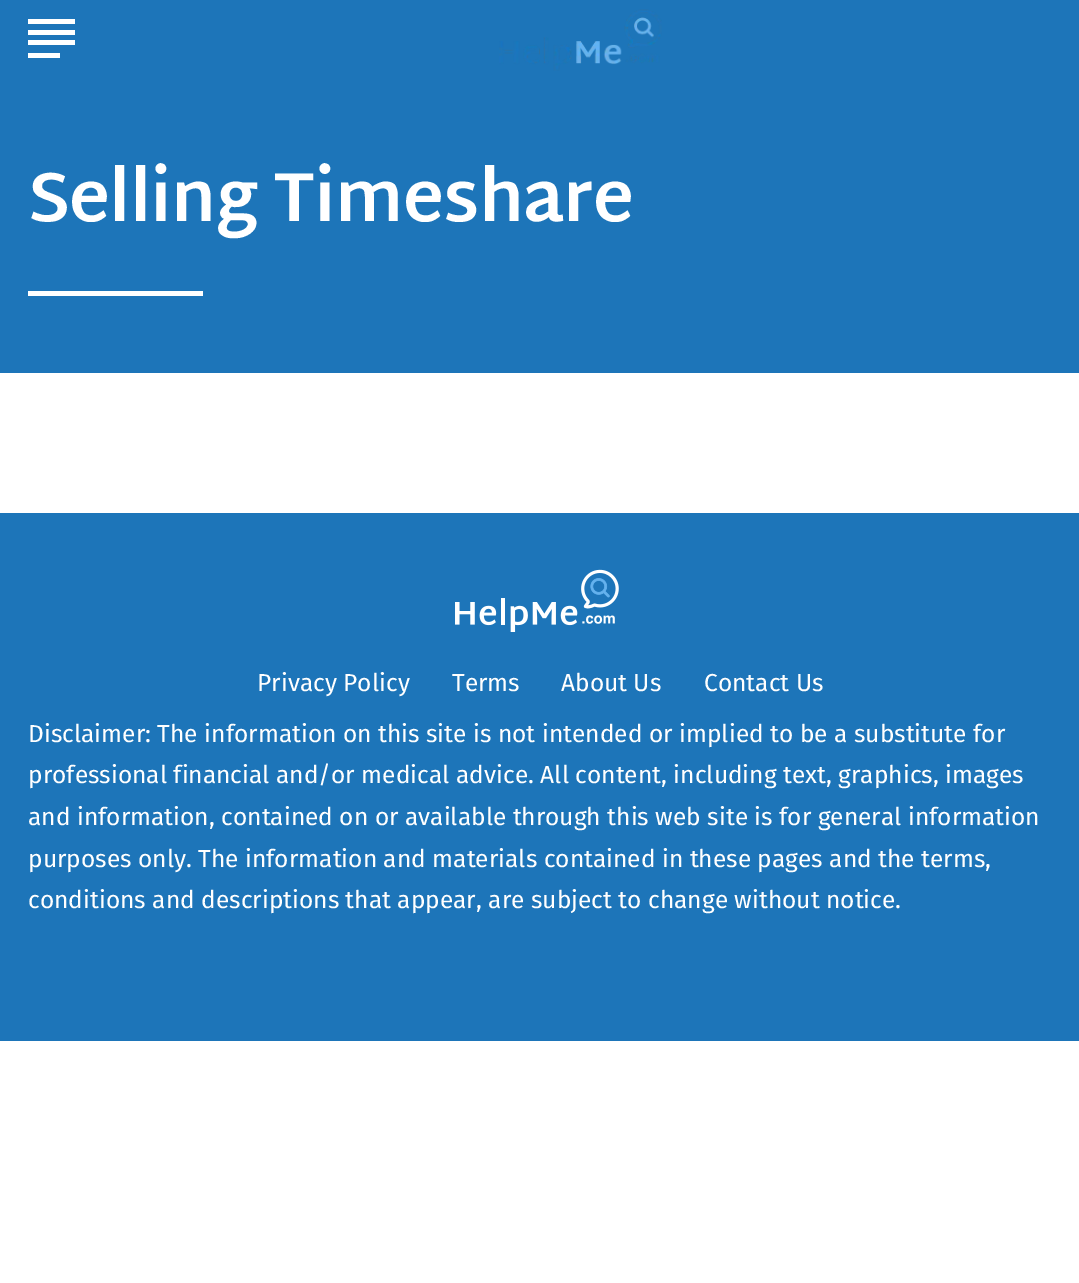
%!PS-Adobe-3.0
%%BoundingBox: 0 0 1079 1283
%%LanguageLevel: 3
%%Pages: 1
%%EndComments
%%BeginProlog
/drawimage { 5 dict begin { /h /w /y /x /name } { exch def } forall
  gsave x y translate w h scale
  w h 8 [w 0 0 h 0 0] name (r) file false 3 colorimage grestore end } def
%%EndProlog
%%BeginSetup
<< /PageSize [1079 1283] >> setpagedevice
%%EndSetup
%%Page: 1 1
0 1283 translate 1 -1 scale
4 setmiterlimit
1 setgray
0 0 1079 1283 rectfill
0.114 0.459 0.725 setrgbcolor
0 0 1079 373 rectfill
1 setgray
28 30 47 5 rectfill
28 19 47 5 rectfill
28 40 47 5 rectfill
28 53 32 5 rectfill
(images/1.raw) 499 9 163 62 drawimage
28 291 175 5 rectfill
0.114 0.459 0.725 setrgbcolor
0 513 1079 528 rectfill
(images/2.raw) 455 569 164 63 drawimage
/MartelSans-Bold [70 0 0 -70 0 0] selectfont
1 setgray
28 221 moveto -0.9 0 (Selling Timeshare) ashow
/FiraSans-Regular [24.5 0 0 -24.5 0 0] selectfont
257 691 moveto (Privacy Policy) show
452 691 moveto (Terms) show
561 691 moveto (About Us) show
704 691 moveto (Contact Us) show
28 742 moveto (Disclaimer: The information on this site is not intended or implied to be a substitute for) show
28 783 moveto (professional financial and/or medical advice. All content, including text, graphics, images) show
28 825 moveto (and information, contained on or available through this web site is for general information) show
28 867 moveto (purposes only. The information and materials contained in these pages and the terms,) show
28 908 moveto (conditions and descriptions that appear, are subject to change without notice.) show
showpage
%%EOF
